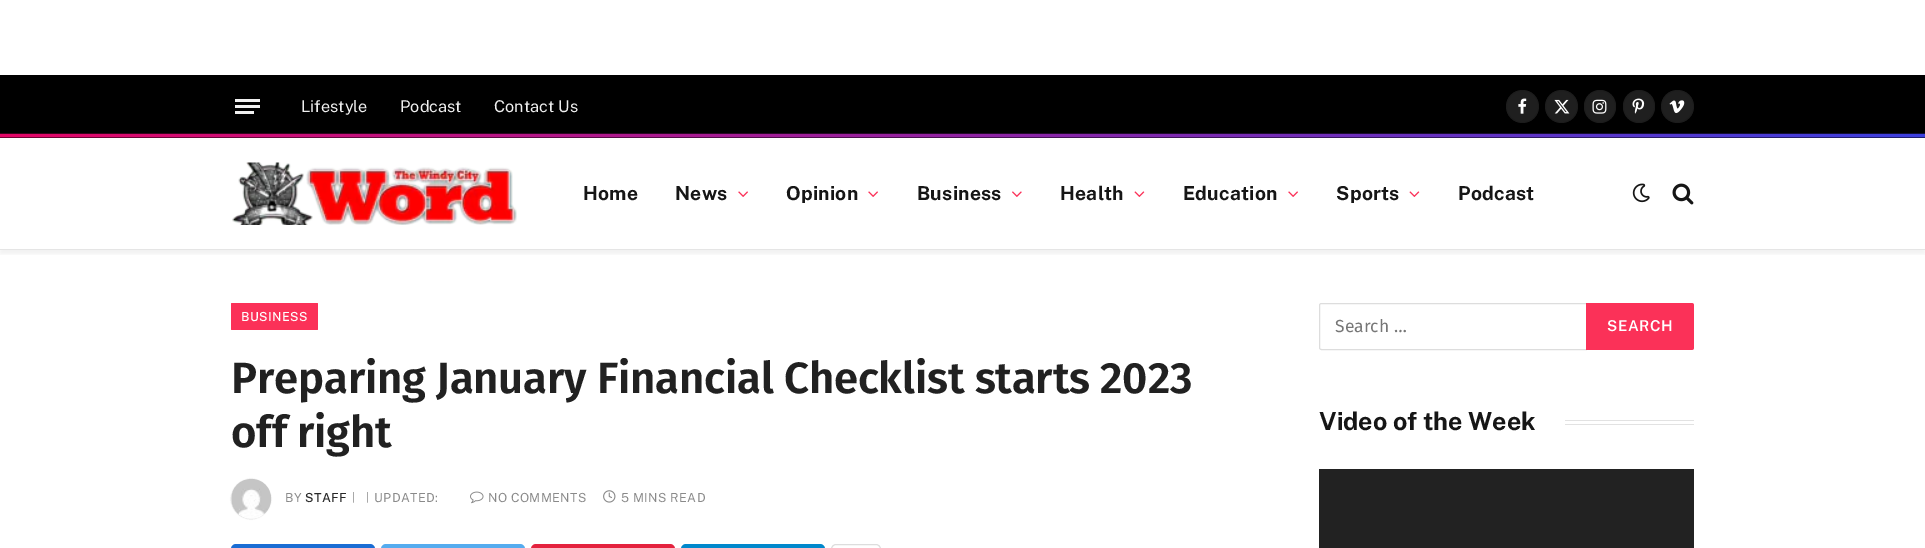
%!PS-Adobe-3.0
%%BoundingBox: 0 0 1925 548
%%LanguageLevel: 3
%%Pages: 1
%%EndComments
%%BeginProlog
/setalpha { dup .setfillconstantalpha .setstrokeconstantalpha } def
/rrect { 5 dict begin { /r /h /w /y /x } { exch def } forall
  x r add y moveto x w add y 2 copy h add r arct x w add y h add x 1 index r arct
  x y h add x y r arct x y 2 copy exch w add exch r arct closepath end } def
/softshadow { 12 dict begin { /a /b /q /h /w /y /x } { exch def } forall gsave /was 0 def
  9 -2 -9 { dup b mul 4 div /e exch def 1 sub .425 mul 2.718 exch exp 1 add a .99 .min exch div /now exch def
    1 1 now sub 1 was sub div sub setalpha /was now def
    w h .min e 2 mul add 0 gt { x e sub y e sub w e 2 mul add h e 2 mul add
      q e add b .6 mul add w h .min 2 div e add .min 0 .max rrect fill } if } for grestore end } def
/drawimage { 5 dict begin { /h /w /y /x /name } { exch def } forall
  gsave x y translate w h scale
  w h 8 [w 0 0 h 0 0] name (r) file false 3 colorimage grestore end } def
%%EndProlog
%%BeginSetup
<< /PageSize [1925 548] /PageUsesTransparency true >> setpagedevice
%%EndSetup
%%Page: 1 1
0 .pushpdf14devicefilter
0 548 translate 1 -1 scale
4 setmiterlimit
1 setgray
0 0 1925 548 rectfill
gsave
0 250 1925 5 rectclip
0 setgray
0 79 1925 175 0 2.5 0.06 softshadow
grestore
0 setgray
0 75 1925 63 rectfill
(images/1.raw) 0 133 1925 5 drawimage
0.941 setgray
235 111 19 3 rectfill
235 99 25 3 rectfill
235 105 25 3 rectfill
0.122 setgray
newpath 1522.5 106.5 16.5 0 360 arc closepath fill
0.09 setalpha
0 setgray
newpath 1522.5 106.5 16 0 360 arc closepath stroke
1 setalpha
(images/2.raw) 1518 98 9 16 drawimage
0.122 setgray
newpath 1561.5 106.5 16.5 0 360 arc closepath fill
0.09 setalpha
0 setgray
newpath 1561.5 106.5 16 0 360 arc closepath stroke
1 setalpha
(images/3.raw) 1554 99 16 15 drawimage
0.122 setgray
1584 90 32 33 16 rrect fill
0.09 setalpha
0 setgray
1584.5 90.5 31 32 15.5 rrect stroke
1 setalpha
(images/4.raw) 1592 99 15 15 drawimage
0.122 setgray
1623 90 32 33 16 rrect fill
0.09 setalpha
0 setgray
1623.5 90.5 31 32 15.5 rrect stroke
1 setalpha
(images/5.raw) 1632 98 13 16 drawimage
0.122 setgray
newpath 1677.5 106.5 16.5 0 360 arc closepath fill
0.09 setalpha
0 setgray
newpath 1677.5 106.5 16 0 360 arc closepath stroke
1 setalpha
(images/6.raw) 1669 100 16 14 drawimage
0.898 setgray
0 249 1925 1 rectfill
(images/7.raw) 232 162 285 63 drawimage
(images/8.raw) 738 191 10 6 drawimage
(images/8.raw) 868 191 10 6 drawimage
(images/9.raw) 1012 191 10 6 drawimage
(images/10.raw) 1134 191 11 6 drawimage
(images/8.raw) 1288 191 10 6 drawimage
(images/10.raw) 1409 191 11 6 drawimage
(images/11.raw) 1632 183 18 20 drawimage
(images/12.raw) 1672 183 22 22 drawimage
0.984 0.192 0.345 setrgbcolor
231 303 87 27 1 rrect fill
0 setgray
231 479 40 40 20 0.5 0.2 softshadow
(images/13.raw) 231 479 40 40 drawimage
(images/14.raw) 470 491 14 13 drawimage
(images/15.raw) 603 490 13 13 drawimage
0.102 0.427 0.831 setrgbcolor
231 544 144 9 5 rrect fill
0.333 0.675 0.937 setrgbcolor
381 544 144 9 5 rrect fill
0.894 0.133 0.243 setrgbcolor
531 544 144 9 5 rrect fill
0 0.533 0.8 setrgbcolor
681 544 144 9 5 rrect fill
0.867 setgray
831.5 544.5 49 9 4.5 rrect stroke
1319.5 303.5 269 46 2 rrect stroke
0.984 0.192 0.345 setrgbcolor
newpath 1586 303 moveto 1691.5 303 lineto 1693 303 1694 304 1694 305.5 curveto 1694 347.5 lineto 1694 349 1693 350 1691.5 350 curveto 1586 350 lineto closepath fill
0.886 setgray
1565 420 129 1 rectfill
1565 424 129 1 rectfill
0.133 setgray
1319 469 375 79 rectfill
/PublicSans-Regular [16.25 0 0 -16.25 0 0] selectfont
0.941 setgray
301 112 moveto (Lifestyle) show
400 112 moveto (Podcast) show
494 112 moveto (Contact Us) show
/PublicSans-Bold [19.25 0 0 -19.25 0 0] selectfont
0.086 setgray
583 200 moveto 0.25 0 (Home) ashow
675 200 moveto 0.25 0 (News) ashow
786 200 moveto 0.25 0 (Opinion) ashow
917 200 moveto 0.25 0 (Business) ashow
1060 200 moveto 0.25 0 (Health) ashow
1183 200 moveto 0.25 0 (Education) ashow
1336 200 moveto 0.25 0 (Sports) ashow
1458 200 moveto 0.25 0 (Podcast) ashow
/PublicSans-Medium [12.5 0 0 -12.5 0 0] selectfont
1 setgray
241 321 moveto 0.4 0 (BUSINESS) ashow
/FiraSans-SemiBold [43.75 0 0 -43.75 0 0] selectfont
0.129 setgray
231 393 moveto -0.2 0 (Preparing January Financial Checklist starts 2023) ashow
231 447 moveto -0.2 0 (off right) ashow
/PublicSans-Regular [12.5 0 0 -12.5 0 0] selectfont
0.541 setgray
285 502 moveto 0.4 0 (BY) ashow
/PublicSans-Medium [12.5 0 0 -12.5 0 0] selectfont
0.157 setgray
305 502 moveto 0.4 0 (STAFF) ashow
/PublicSans-Regular [11 0 0 -11 0 0] selectfont
0.541 setgray
352 501 moveto (|) show
366 501 moveto (|) show
/PublicSans-Regular [12.5 0 0 -12.5 0 0] selectfont
374 502 moveto 0.4 0 (UPDATED:) ashow
488 502 moveto 0.4 0 (NO COMMENTS) ashow
621 502 moveto 0.4 0 (5 MINS READ) ashow
/FiraSans-Regular [17.5 0 0 -17.5 0 0] selectfont
0.467 setgray
1335 332 moveto (Search …) show
/PublicSans-SemiBold [15 0 0 -15 0 0] selectfont
1 setgray
1607 331 moveto 0.5 0 (SEARCH) ashow
/PublicSans-Bold [25 0 0 -25 0 0] selectfont
0.086 setgray
1319 430 moveto (Video of the Week) show
.poppdf14devicefilter showpage
%%EOF
